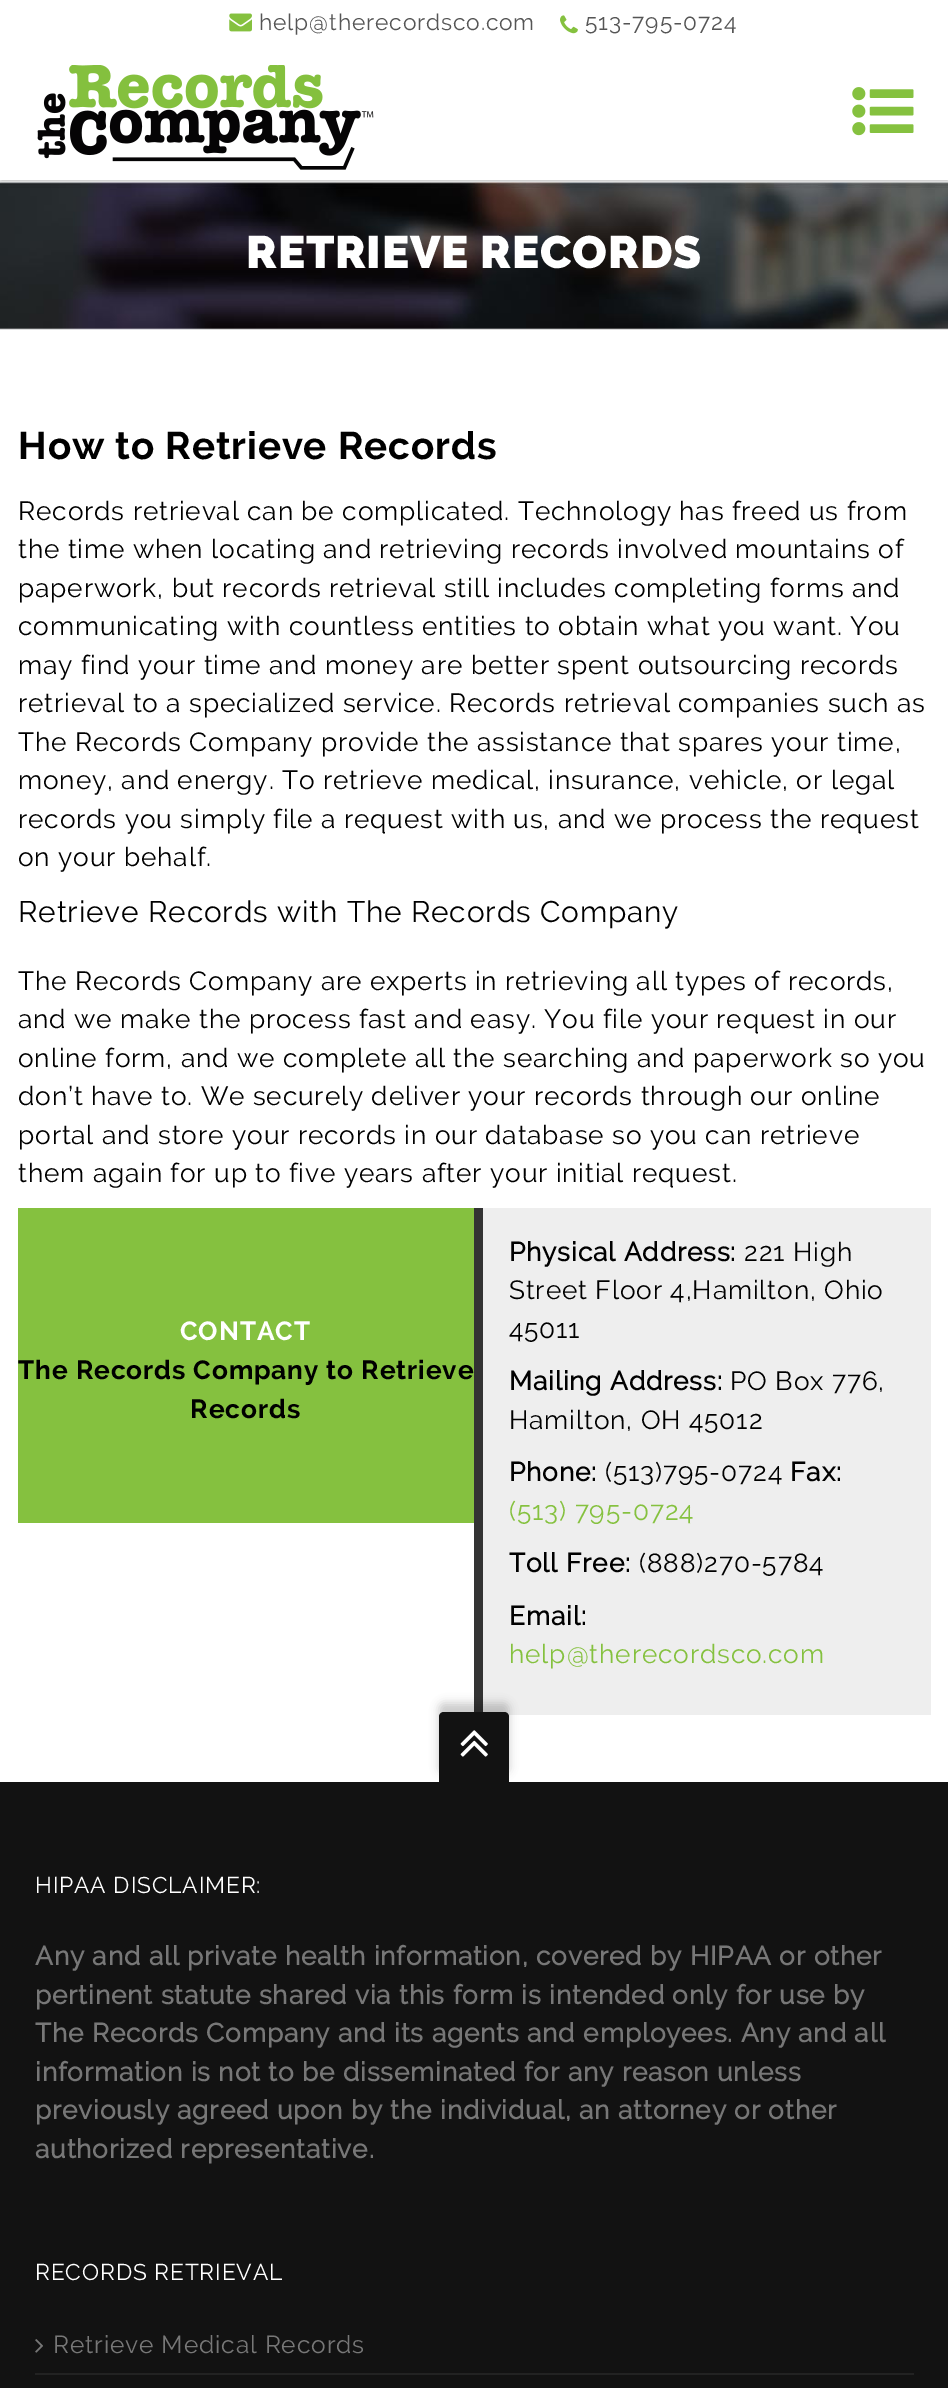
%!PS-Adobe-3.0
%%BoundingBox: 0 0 948 2388
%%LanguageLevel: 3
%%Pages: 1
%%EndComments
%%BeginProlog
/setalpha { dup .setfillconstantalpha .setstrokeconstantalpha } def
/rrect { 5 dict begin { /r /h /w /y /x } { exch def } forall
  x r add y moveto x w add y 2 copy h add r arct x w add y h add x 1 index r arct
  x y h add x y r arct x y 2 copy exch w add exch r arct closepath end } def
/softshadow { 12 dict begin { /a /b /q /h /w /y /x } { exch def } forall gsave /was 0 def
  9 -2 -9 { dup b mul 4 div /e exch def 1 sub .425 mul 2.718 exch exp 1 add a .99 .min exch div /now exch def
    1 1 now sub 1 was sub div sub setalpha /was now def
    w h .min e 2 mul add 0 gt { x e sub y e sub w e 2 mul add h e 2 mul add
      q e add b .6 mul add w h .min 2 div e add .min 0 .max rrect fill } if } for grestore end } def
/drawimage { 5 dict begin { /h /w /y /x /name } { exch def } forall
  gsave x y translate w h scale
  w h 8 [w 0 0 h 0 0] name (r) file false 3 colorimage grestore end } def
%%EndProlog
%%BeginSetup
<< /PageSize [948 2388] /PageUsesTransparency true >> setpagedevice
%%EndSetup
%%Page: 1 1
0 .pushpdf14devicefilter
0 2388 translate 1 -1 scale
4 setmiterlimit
1 setgray
0 0 948 2388 rectfill
(images/5.raw) 0 182 948 148 drawimage
gsave
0 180 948 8 rectclip
0 setgray
0 2 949 180 0 4.5 0.25 softshadow
grestore
(images/1.raw) 229 13 23 19 drawimage
(images/2.raw) 560 15 18 19 drawimage
(images/3.raw) 37 65 337 105 drawimage
(images/4.raw) 852 87 62 49 drawimage
0.522 0.757 0.247 setrgbcolor
18 1208 456 315 rectfill
0.933 setgray
483 1208 448 507 rectfill
0.2 setgray
474 1208 9 504 rectfill
0.071 setgray
0 1782 948 606 rectfill
0 setgray
439 1703 70 70 5 4.5 0.2 softshadow
0.071 setgray
newpath 444 1712 moveto 504 1712 lineto 507 1712 509 1714 509 1717 curveto 509 1782 lineto 439 1782 lineto 439 1717 lineto 439 1714 441 1712 444 1712 curveto closepath fill
(images/6.raw) 460 1730 28 27 drawimage
0.133 setgray
35 2373 879 2 rectfill
(images/7.raw) 35 2339 8 14 drawimage
/Raleway-Regular [22.75 0 0 -22.75 0 0] selectfont
0.333 setgray
259 30 moveto 0.88 0 (help@therecordsco.com) ashow
585 30 moveto 0.88 0 (513-795-0724) ashow
/Raleway-Black [45.5 0 0 -45.5 0 0] selectfont
1 setgray
246 268 moveto 0.88 0 (RETRIEVE RECORDS) ashow
/Raleway-Bold [38.5 0 0 -38.5 0 0] selectfont
0 setgray
18 459 moveto 0.88 0 (How to Retrieve Records) ashow
/Raleway-Regular [26.25 0 0 -26.25 0 0] selectfont
18 520 moveto 0.88 0 (Records retrieval can be complicated. Technology has freed us from) ashow
18 558 moveto 0.88 0 (the time when locating and retrieving records involved mountains of) ashow
18 597 moveto 0.88 0 (paperwork, but records retrieval still includes completing forms and) ashow
18 635 moveto 0.88 0 (communicating with countless entities to obtain what you want. You) ashow
18 674 moveto 0.88 0 (may find your time and money are better spent outsourcing records) ashow
18 712 moveto 0.88 0 (retrieval to a specialized service. Records retrieval companies such as) ashow
18 751 moveto 0.88 0 (The Records Company provide the assistance that spares your time,) ashow
18 789 moveto 0.88 0 (money, and energy. To retrieve medical, insurance, vehicle, or legal) ashow
18 828 moveto 0.88 0 (records you simply file a request with us, and we process the request) ashow
18 866 moveto 0.88 0 (on your behalf.) ashow
/Raleway-Regular [29.75 0 0 -29.75 0 0] selectfont
18 922 moveto 0.88 0 (Retrieve Records with The Records Company) ashow
/Raleway-Regular [26.25 0 0 -26.25 0 0] selectfont
18 990 moveto 0.88 0 (The Records Company are experts in retrieving all types of records,) ashow
18 1028 moveto 0.88 0 (and we make the process fast and easy. You file your request in our) ashow
18 1067 moveto 0.88 0 (online form, and we complete all the searching and paperwork so you) ashow
18 1105 moveto 0.88 0 (don’t have to. We securely deliver your records through our online) ashow
18 1144 moveto 0.88 0 (portal and store your records in our database so you can retrieve) ashow
18 1182 moveto 0.88 0 (them again for up to five years after your initial request.) ashow
/Raleway-Bold [26.25 0 0 -26.25 0 0] selectfont
1 setgray
180 1340 moveto 0.88 0 (CONTACT) ashow
0 setgray
18 1379 moveto 0.88 0 (The Records Company to Retrieve) ashow
190 1418 moveto 0.88 0 (Records) ashow
/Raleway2-Bold [26.25 0 0 -26.25 0 0] selectfont
509 1261 moveto 0.88 0 (Physical Address:) ashow
/Raleway-Regular [26.25 0 0 -26.25 0 0] selectfont
744 1261 moveto 0.88 0 (221 High) ashow
509 1299 moveto 0.88 0 (Street Floor 4,Hamilton, Ohio) ashow
509 1338 moveto 0.88 0 (45011) ashow
/Raleway2-Bold [26.25 0 0 -26.25 0 0] selectfont
509 1390 moveto 0.88 0 (Mailing Address:) ashow
/Raleway-Regular [26.25 0 0 -26.25 0 0] selectfont
730 1390 moveto 0.88 0 (PO Box 776,) ashow
509 1429 moveto 0.88 0 (Hamilton, OH 45012) ashow
/Raleway2-Bold [26.25 0 0 -26.25 0 0] selectfont
509 1481 moveto 0.88 0 (Phone:) ashow
/Raleway-Regular [26.25 0 0 -26.25 0 0] selectfont
605 1481 moveto 0.88 0 (\(513\)795-0724) ashow
/Raleway2-Bold [26.25 0 0 -26.25 0 0] selectfont
790 1481 moveto 0.88 0 (Fax:) ashow
/Raleway-Regular [26.25 0 0 -26.25 0 0] selectfont
0.522 0.757 0.247 setrgbcolor
509 1520 moveto 0.88 0 (\(513\) 795-0724) ashow
/Raleway2-Bold [26.25 0 0 -26.25 0 0] selectfont
0 setgray
509 1572 moveto 0.88 0 (Toll Free:) ashow
/Raleway-Regular [26.25 0 0 -26.25 0 0] selectfont
639 1572 moveto 0.88 0 (\(888\)270-5784) ashow
/Raleway2-Bold [26.25 0 0 -26.25 0 0] selectfont
509 1625 moveto 0.88 0 (Email:) ashow
/Raleway-Regular [26.25 0 0 -26.25 0 0] selectfont
0.522 0.757 0.247 setrgbcolor
509 1663 moveto 0.88 0 (help@therecordsco.com) ashow
/Raleway-Regular [22.75 0 0 -22.75 0 0] selectfont
1 setgray
35 1893 moveto 0.88 0 (HIPAA DISCLAIMER:) ashow
/Raleway2-Bold [26.25 0 0 -26.25 0 0] selectfont
0.467 setgray
35 1965 moveto 0.88 0 (Any and all private health information, covered by HIPAA or other) ashow
35 2004 moveto 0.88 0 (pertinent statute shared via this form is intended only for use by) ashow
35 2042 moveto 0.88 0 (The Records Company and its agents and employees. Any and all) ashow
35 2081 moveto 0.88 0 (information is not to be disseminated for any reason unless) ashow
35 2119 moveto 0.88 0 (previously agreed upon by the individual, an attorney or other) ashow
35 2158 moveto 0.88 0 (authorized representative.) ashow
/Raleway-Regular [22.75 0 0 -22.75 0 0] selectfont
1 setgray
35 2280 moveto 0.88 0 (RECORDS RETRIEVAL) ashow
/Raleway-Regular [24.5 0 0 -24.5 0 0] selectfont
0.467 setgray
53 2353 moveto 0.88 0 (Retrieve Medical Records) ashow
.poppdf14devicefilter showpage
%%EOF
